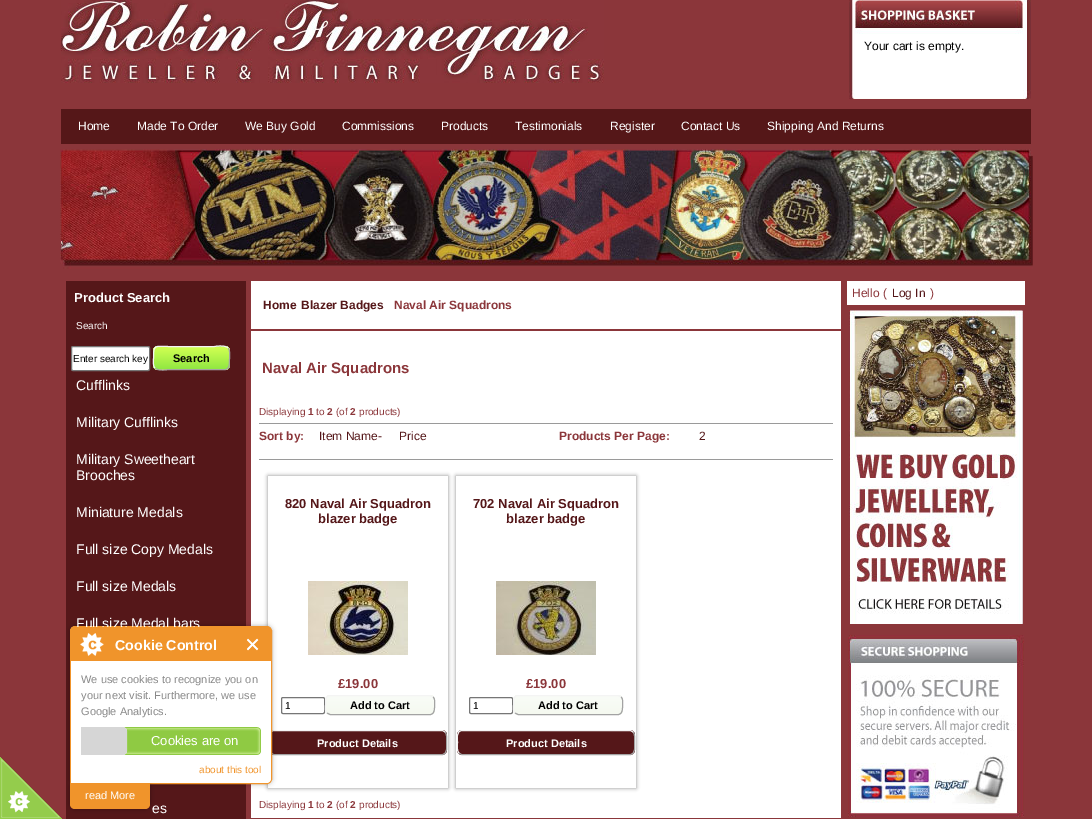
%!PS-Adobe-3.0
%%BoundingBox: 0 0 1092 819
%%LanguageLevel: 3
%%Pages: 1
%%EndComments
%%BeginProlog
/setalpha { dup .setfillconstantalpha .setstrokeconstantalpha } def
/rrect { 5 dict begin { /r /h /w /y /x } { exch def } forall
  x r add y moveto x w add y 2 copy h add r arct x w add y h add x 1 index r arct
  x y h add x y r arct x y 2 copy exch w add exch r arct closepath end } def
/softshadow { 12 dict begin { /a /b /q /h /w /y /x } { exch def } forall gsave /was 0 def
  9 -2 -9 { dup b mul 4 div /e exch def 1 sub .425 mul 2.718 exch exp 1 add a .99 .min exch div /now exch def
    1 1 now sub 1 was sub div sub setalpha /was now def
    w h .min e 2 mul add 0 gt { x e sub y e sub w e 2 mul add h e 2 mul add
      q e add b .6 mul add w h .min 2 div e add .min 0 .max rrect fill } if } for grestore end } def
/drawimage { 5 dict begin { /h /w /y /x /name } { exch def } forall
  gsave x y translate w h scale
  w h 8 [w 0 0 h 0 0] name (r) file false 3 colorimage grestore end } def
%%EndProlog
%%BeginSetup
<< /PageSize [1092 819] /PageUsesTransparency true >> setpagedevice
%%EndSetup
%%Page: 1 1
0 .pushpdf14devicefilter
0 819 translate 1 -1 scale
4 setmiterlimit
0.545 0.212 0.227 setrgbcolor
0 0 1092 819 rectfill
(images/1.raw) 61 0 543 83 drawimage
(images/2.raw) 849 0 182 99 drawimage
0.333 0.09 0.094 setrgbcolor
61 109 970 35 rectfill
(images/3.raw) 60 149 973 120 drawimage
0.333 0.09 0.098 setrgbcolor
66 281 180 538 rectfill
1 setgray
71.5 346.5 78 24 1.5 rrect gsave fill grestore
0.463 setgray
stroke
gsave
153 346 77 24 5 rrect clip newpath
gsave newpath 153 346 moveto 230 346 lineto 230 347 lineto 153 347 lineto closepath clip newpath
<< /ShadingType 2 /ColorSpace /DeviceRGB /Coords [192 325 192 347] /Extend [true true] /Function << /FunctionType 2 /Domain [0 1] /C0 [0.824 1 0.322] /C1 [0.569 0.91 0.259] /N 1 >> >> shfill grestore
gsave newpath 153 347 moveto 230 347 lineto 230 369 lineto 153 369 lineto closepath clip newpath
<< /ShadingType 2 /ColorSpace /DeviceRGB /Coords [192 347 192 369] /Extend [true true] /Function << /FunctionType 2 /Domain [0 1] /C0 [0.824 1 0.322] /C1 [0.569 0.91 0.259] /N 1 >> >> shfill grestore
gsave newpath 153 369 moveto 230 369 lineto 230 370 lineto 153 370 lineto closepath clip newpath
<< /ShadingType 2 /ColorSpace /DeviceRGB /Coords [192 369 192 391] /Extend [true true] /Function << /FunctionType 2 /Domain [0 1] /C0 [0.824 1 0.322] /C1 [0.569 0.91 0.259] /N 1 >> >> shfill grestore
grestore
0.639 setgray
newpath 228 348 moveto 230.5 350.5 229.5 355 229.5 358 curveto 229.5 372 228.5 369.5 214 369.5 curveto 169 369.5 lineto 168 369.5 158 371.5 155 368 curveto stroke
0.957 setgray
newpath 155 368 moveto 152.5 365.5 153.5 361 153.5 358 curveto 153.5 344 154.5 346.5 169 346.5 curveto 214 346.5 lineto 215 346.5 225 344.5 228 348 curveto stroke
1 setgray
251 281 590 537 rectfill
0.545 0.212 0.227 setrgbcolor
251 329 590 2 rectfill
0.604 setgray
259 423 574 1 rectfill
259 459 574 1 rectfill
gsave
newpath 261 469 moveto 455 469 lineto 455 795 lineto 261 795 lineto closepath 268 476 moveto 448 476 lineto 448 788 lineto 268 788 lineto closepath eoclip newpath
0.533 setgray
268 476 180 312 0 2 1 softshadow
grestore
(images/4.raw) 308 581 100 74 drawimage
0.463 setgray
281.5 697.5 43 16 1.5 rrect stroke
gsave
325 695 110 20 5 rrect clip newpath
gsave newpath 325 695 moveto 435 695 lineto 435 696 lineto 325 696 lineto closepath clip newpath
<< /ShadingType 2 /ColorSpace /DeviceRGB /Coords [380 678 380 696] /Extend [true true] /Function << /FunctionType 2 /Domain [0 1] /C0 [0.976 0.988 0.969] /C1 [0.961 0.976 0.941] /N 1 >> >> shfill grestore
gsave newpath 325 696 moveto 435 696 lineto 435 714 lineto 325 714 lineto closepath clip newpath
<< /ShadingType 2 /ColorSpace /DeviceRGB /Coords [380 696 380 714] /Extend [true true] /Function << /FunctionType 2 /Domain [0 1] /C0 [0.976 0.988 0.969] /C1 [0.961 0.976 0.941] /N 1 >> >> shfill grestore
gsave newpath 325 714 moveto 435 714 lineto 435 715 lineto 325 715 lineto closepath clip newpath
<< /ShadingType 2 /ColorSpace /DeviceRGB /Coords [380 714 380 732] /Extend [true true] /Function << /FunctionType 2 /Domain [0 1] /C0 [0.976 0.988 0.969] /C1 [0.961 0.976 0.941] /N 1 >> >> shfill grestore
grestore
0.639 setgray
newpath 433 697 moveto 435.5 699 434.5 702.5 434.5 705 curveto 434.5 708.5 435 714.5 430 714.5 curveto 330 714.5 lineto 327 713 lineto stroke
0.957 setgray
newpath 327 713 moveto 324.5 711 325.5 707.5 325.5 705 curveto 325.5 701.5 325 695.5 330 695.5 curveto 430 695.5 lineto 433 697 lineto stroke
0.333 0.09 0.098 setrgbcolor
269 730 178 25 5 rrect fill
0.639 setgray
newpath 445 732 moveto 447.5 734.5 446.5 739.5 446.5 742.5 curveto 446.5 746 448 754.5 442 754.5 curveto 273.5 754.5 lineto 271 753 lineto stroke
0.957 setgray
newpath 271 753 moveto 268.5 750.5 269.5 745.5 269.5 742.5 curveto 269.5 739 268 730.5 274 730.5 curveto 442.5 730.5 lineto 445 732 lineto stroke
gsave
newpath 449 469 moveto 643 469 lineto 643 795 lineto 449 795 lineto closepath 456 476 moveto 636 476 lineto 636 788 lineto 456 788 lineto closepath eoclip newpath
0.533 setgray
456 476 180 312 0 2 1 softshadow
grestore
(images/5.raw) 496 581 100 74 drawimage
0.463 setgray
469.5 697.5 43 16 1.5 rrect stroke
gsave
513 695 110 20 5 rrect clip newpath
gsave newpath 513 695 moveto 623 695 lineto 623 696 lineto 513 696 lineto closepath clip newpath
<< /ShadingType 2 /ColorSpace /DeviceRGB /Coords [568 678 568 696] /Extend [true true] /Function << /FunctionType 2 /Domain [0 1] /C0 [0.976 0.988 0.969] /C1 [0.961 0.976 0.941] /N 1 >> >> shfill grestore
gsave newpath 513 696 moveto 623 696 lineto 623 714 lineto 513 714 lineto closepath clip newpath
<< /ShadingType 2 /ColorSpace /DeviceRGB /Coords [568 696 568 714] /Extend [true true] /Function << /FunctionType 2 /Domain [0 1] /C0 [0.976 0.988 0.969] /C1 [0.961 0.976 0.941] /N 1 >> >> shfill grestore
gsave newpath 513 714 moveto 623 714 lineto 623 715 lineto 513 715 lineto closepath clip newpath
<< /ShadingType 2 /ColorSpace /DeviceRGB /Coords [568 714 568 732] /Extend [true true] /Function << /FunctionType 2 /Domain [0 1] /C0 [0.976 0.988 0.969] /C1 [0.961 0.976 0.941] /N 1 >> >> shfill grestore
grestore
0.639 setgray
newpath 621 697 moveto 623.5 699 622.5 702.5 622.5 705 curveto 622.5 708.5 623 714.5 618 714.5 curveto 518 714.5 lineto 515 713 lineto stroke
0.957 setgray
newpath 515 713 moveto 512.5 711 513.5 707.5 513.5 705 curveto 513.5 701.5 513 695.5 518 695.5 curveto 618 695.5 lineto 621 697 lineto stroke
0.333 0.09 0.098 setrgbcolor
457 730 178 25 5 rrect fill
0.639 setgray
newpath 633 732 moveto 635.5 734.5 634.5 739.5 634.5 742.5 curveto 634.5 746 636 754.5 630 754.5 curveto 461.5 754.5 lineto 459 753 lineto stroke
0.957 setgray
newpath 459 753 moveto 456.5 750.5 457.5 745.5 457.5 742.5 curveto 457.5 739 456 730.5 462 730.5 curveto 630.5 730.5 lineto 633 732 lineto stroke
1 setgray
847 281 178 24 rectfill
(images/6.raw) 849 310 174 314 drawimage
(images/7.raw) 848 635 176 182 drawimage
(images/8.raw) 0 757 62 62 drawimage
0 setgray
70 626 202 158 5 2.5 0.3 softshadow
1 setgray
newpath 75 626.5 moveto 267 626.5 lineto 269.5 626.5 271.5 628.5 271.5 631 curveto 271.5 779 lineto 271.5 781.5 269.5 783.5 267 783.5 curveto 70.5 783.5 lineto 70.5 631 lineto 70.5 628.5 72.5 626.5 75 626.5 curveto closepath gsave fill grestore
0.941 0.58 0.169 setrgbcolor
stroke
0 setgray
70 782 80 27 5 2.5 0.3 softshadow
0.941 0.58 0.169 setrgbcolor
newpath 70 782 moveto 150 782 lineto 150 804 lineto 150 807 148 809 145 809 curveto 75 809 lineto 72 809 70 807 70 804 curveto closepath fill
1 setgray
newpath 76 627 moveto 266 627 lineto 269 627 271 629 271 632 curveto 271 778 lineto 271 781 269 783 266 783 curveto 71 783 lineto 71 632 lineto 71 629 73 627 76 627 curveto closepath fill
(images/11.raw) 81 727 180 28 drawimage
/LiberationSans-Regular [12 0 0 -12 0 0] selectfont
0 setgray
864 50 moveto (Your cart is empty.) show
1 setgray
78 130 moveto (Home) show
137 130 moveto (Made To Order) show
245 130 moveto (We Buy Gold) show
342 130 moveto (Commissions) show
441 130 moveto (Products) show
515 130 moveto (Testimonials) show
610 130 moveto (Register) show
681 130 moveto (Contact Us) show
767 130 moveto (Shipping And Returns) show
/LiberationSans-Bold [13 0 0 -13 0 0] selectfont
74 302 moveto (Product Search) show
/LiberationSans-Regular [10 0 0 -10 0 0] selectfont
76 329 moveto (Search) show
0 setgray
73 362 moveto (Enter search key) show
/LiberationSans-Bold [11 0 0 -11 0 0] selectfont
173 362 moveto (Search) show
/LiberationSans-Regular [14 0 0 -14 0 0] selectfont
1 setgray
76 390 moveto (Cufflinks) show
76 427 moveto (Military Cufflinks) show
76 464 moveto (Military Sweetheart) show
76 480 moveto (Brooches) show
76 517 moveto (Miniature Medals) show
76 554 moveto (Full size Copy Medals) show
76 591 moveto (Full size Medals) show
76 628 moveto (Full size Medal bars) show
152 813 moveto (es) show
/LiberationSans-Bold [12 0 0 -12 0 0] selectfont
0.333 0.09 0.098 setrgbcolor
263 309 moveto (Home) show
301 309 moveto (Blazer Badges) show
0.545 0.212 0.227 setrgbcolor
394 309 moveto (Naval Air Squadrons) show
/LiberationSans-Bold [15 0 0 -15 0 0] selectfont
262 373 moveto (Naval Air Squadrons) show
/LiberationSans-Regular [10 0 0 -10 0 0] selectfont
259 415 moveto (Displaying) show
/LiberationSans-Bold [10 0 0 -10 0 0] selectfont
308 415 moveto (1) show
/LiberationSans-Regular [10 0 0 -10 0 0] selectfont
316 415 moveto (to) show
/LiberationSans-Bold [10 0 0 -10 0 0] selectfont
327 415 moveto (2) show
/LiberationSans-Regular [10 0 0 -10 0 0] selectfont
336 415 moveto (\(of) show
/LiberationSans-Bold [10 0 0 -10 0 0] selectfont
350 415 moveto (2) show
/LiberationSans-Regular [10 0 0 -10 0 0] selectfont
359 415 moveto (products\)) show
/LiberationSans-Bold [12 0 0 -12 0 0] selectfont
259 440 moveto (Sort by:) show
/LiberationSans-Regular [12 0 0 -12 0 0] selectfont
0.333 0.09 0.098 setrgbcolor
319 440 moveto (Item Name-) show
399 440 moveto (Price) show
/LiberationSans-Bold [12 0 0 -12 0 0] selectfont
0.545 0.212 0.227 setrgbcolor
559 440 moveto (Products Per Page:) show
/LiberationSans-Regular [12 0 0 -12 0 0] selectfont
0.333 0.09 0.098 setrgbcolor
699 440 moveto (2) show
/LiberationSans-Bold [13 0 0 -13 0 0] selectfont
285 508 moveto (820 Naval Air Squadron) show
318 523 moveto (blazer badge) show
0.545 0.212 0.227 setrgbcolor
338 688 moveto (£19.00) show
/LiberationSans-Regular [10 0 0 -10 0 0] selectfont
0 setgray
285 709 moveto (1) show
/LiberationSans-Bold [11 0 0 -11 0 0] selectfont
350 709 moveto (Add to Cart) show
1 setgray
317 747 moveto (Product Details) show
/LiberationSans-Bold [13 0 0 -13 0 0] selectfont
0.333 0.09 0.098 setrgbcolor
473 508 moveto (702 Naval Air Squadron) show
506 523 moveto (blazer badge) show
0.545 0.212 0.227 setrgbcolor
526 688 moveto (£19.00) show
/LiberationSans-Regular [10 0 0 -10 0 0] selectfont
0 setgray
473 709 moveto (1) show
/LiberationSans-Bold [11 0 0 -11 0 0] selectfont
538 709 moveto (Add to Cart) show
1 setgray
506 747 moveto (Product Details) show
/LiberationSans-Regular [10 0 0 -10 0 0] selectfont
0.545 0.212 0.227 setrgbcolor
259 808 moveto (Displaying) show
/LiberationSans-Bold [10 0 0 -10 0 0] selectfont
308 808 moveto (1) show
/LiberationSans-Regular [10 0 0 -10 0 0] selectfont
316 808 moveto (to) show
/LiberationSans-Bold [10 0 0 -10 0 0] selectfont
327 808 moveto (2) show
/LiberationSans-Regular [10 0 0 -10 0 0] selectfont
336 808 moveto (\(of) show
/LiberationSans-Bold [10 0 0 -10 0 0] selectfont
350 808 moveto (2) show
/LiberationSans-Regular [10 0 0 -10 0 0] selectfont
359 808 moveto (products\)) show
/LiberationSans-Regular [12 0 0 -12 0 0] selectfont
852 297 moveto (Hello \() show
0.333 0.09 0.098 setrgbcolor
892 297 moveto (Log In) show
0.545 0.212 0.227 setrgbcolor
930 297 moveto (\)) show
0.941 0.58 0.169 setrgbcolor
newpath 74 627 moveto 268 627 lineto 269.5 627 271 628.5 271 630 curveto 271 661 lineto 71 661 lineto 71 630 lineto 71 628.5 72.5 627 74 627 curveto closepath fill
(images/9.raw) 80 633 24 23 drawimage
/LiberationSans-Bold [14.25 0 0 -14.25 0 0] selectfont
1 setgray
115 650 moveto (Cookie Control) show
(images/10.raw) 247 638 12 13 drawimage
/LiberationSans-Regular [11 0 0 -11 0 0] selectfont
0.533 setgray
81 683 moveto (We use cookies to recognize you on) show
81 699 moveto (your next visit. Furthermore, we use) show
81 715 moveto (Google Analytics.) show
/LiberationSans-Regular [13 0 0 -13 0 0] selectfont
1 setgray
151 745 moveto (Cookies are on) show
/LiberationSans-Regular [10 0 0 -10 0 0] selectfont
0.941 0.58 0.169 setrgbcolor
199 773 moveto (about this tool) show
/LiberationSans-Regular [11 0 0 -11 0 0] selectfont
1 setgray
85 799 moveto (read More) show
.poppdf14devicefilter showpage
%%EOF
